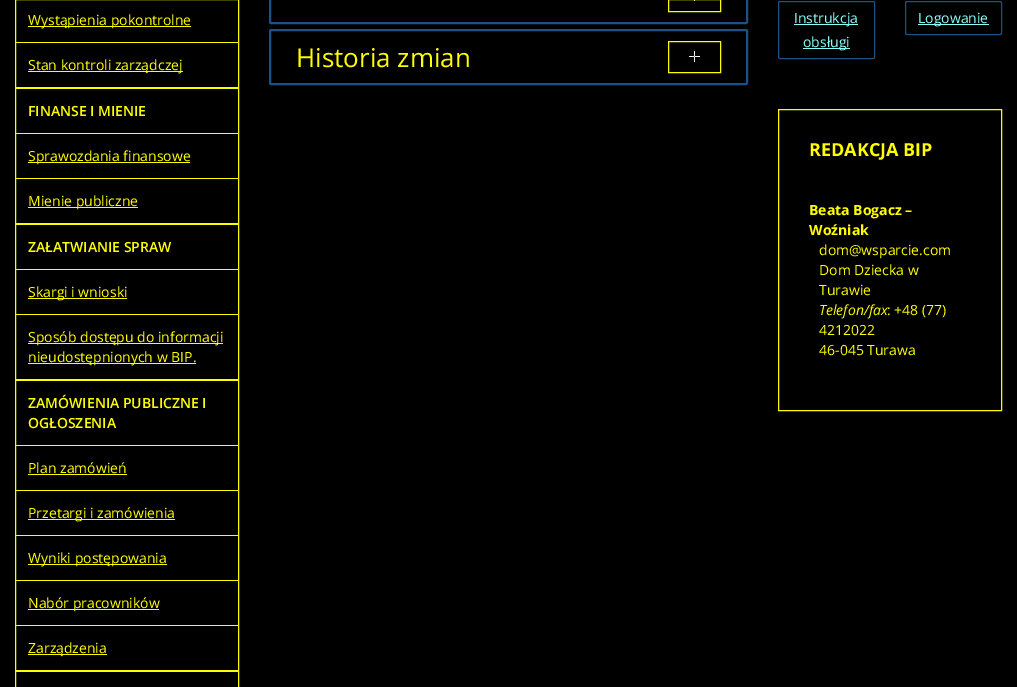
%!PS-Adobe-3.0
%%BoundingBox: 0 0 1017 687
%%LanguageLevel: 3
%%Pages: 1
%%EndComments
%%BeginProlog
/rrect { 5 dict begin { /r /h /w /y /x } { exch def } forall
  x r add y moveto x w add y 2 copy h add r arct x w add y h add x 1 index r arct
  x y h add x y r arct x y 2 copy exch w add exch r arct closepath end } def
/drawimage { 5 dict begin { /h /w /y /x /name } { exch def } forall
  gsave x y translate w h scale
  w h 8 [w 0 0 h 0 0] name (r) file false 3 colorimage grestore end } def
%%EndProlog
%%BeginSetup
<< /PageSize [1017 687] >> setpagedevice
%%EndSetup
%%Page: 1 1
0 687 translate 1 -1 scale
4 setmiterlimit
0 setgray
0 0 1017 687 rectfill
1 1 0 setrgbcolor
15.5 -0.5 223 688 rectstroke
28 26 163 1 rectfill
16 42 222 1 rectfill
28 71 155 1 rectfill
16 87 222 2 rectfill
16 133 222 1 rectfill
28 162 162 1 rectfill
16 178 222 1 rectfill
28 207 110 1 rectfill
16 223 222 2 rectfill
16 269 222 1 rectfill
28 298 99 1 rectfill
16 314 222 1 rectfill
28 343 195 1 rectfill
28 363 168 1 rectfill
16 379 222 2 rectfill
16 445 222 1 rectfill
28 474 99 1 rectfill
16 490 222 1 rectfill
28 519 147 1 rectfill
16 535 222 1 rectfill
28 564 139 1 rectfill
16 580 222 1 rectfill
28 609 131 1 rectfill
16 625 222 1 rectfill
28 654 79 1 rectfill
16 670 222 2 rectfill
0.114 0.318 0.518 setrgbcolor
2 setlinewidth
270 -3 477 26 1 rrect stroke
0.945 0.953 0.949 setrgbcolor
694 0 1 1 rectfill
1 1 0 setrgbcolor
1 setlinewidth
668.5 -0.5 52 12 rectstroke
0.114 0.318 0.518 setrgbcolor
2 setlinewidth
270 30 477 54 1 rrect stroke
(images/1.raw) 689 51 11 11 drawimage
1 1 0 setrgbcolor
1 setlinewidth
668.5 41.5 52 31 rectstroke
0.114 0.318 0.518 setrgbcolor
778.5 1.5 96 57 1.5 rrect stroke
0.545 1 0.984 setrgbcolor
794 24 64 1 rectfill
803 48 47 1 rectfill
0.114 0.318 0.518 setrgbcolor
905.5 1.5 96 33 1.5 rrect stroke
0.545 1 0.984 setrgbcolor
918 24 71 1 rectfill
1 1 0 setrgbcolor
778.5 109.5 223 301 rectstroke
/OpenSans-Regular [14 0 0 -14 0 0] selectfont
28 25 moveto (Wystąpienia pokontrolne) show
28 70 moveto (Stan kontroli zarządczej) show
/OpenSans-SemiBold [14 0 0 -14 0 0] selectfont
28 116 moveto (FINANSE I MIENIE) show
/OpenSans-Regular [14 0 0 -14 0 0] selectfont
28 161 moveto (Sprawozdania finansowe) show
28 206 moveto (Mienie publiczne) show
/OpenSans-SemiBold [14 0 0 -14 0 0] selectfont
28 252 moveto (ZAŁATWIANIE SPRAW) show
/OpenSans-Regular [14 0 0 -14 0 0] selectfont
28 297 moveto (Skargi i wnioski) show
28 342 moveto (Sposób dostępu do informacji) show
28 362 moveto (nieudostępnionych w BIP.) show
/OpenSans-SemiBold [14 0 0 -14 0 0] selectfont
28 408 moveto (ZAMÓWIENIA PUBLICZNE I) show
28 428 moveto (OGŁOSZENIA) show
/OpenSans-Regular [14 0 0 -14 0 0] selectfont
28 473 moveto (Plan zamówień) show
28 518 moveto (Przetargi i zamówienia) show
28 563 moveto (Wyniki postępowania) show
28 608 moveto (Nabór pracowników) show
28 653 moveto (Zarządzenia) show
/OpenSans-Regular [26 0 0 -26 0 0] selectfont
296 67 moveto (Historia zmian) show
/OpenSans-Regular [14 0 0 -14 0 0] selectfont
0.545 1 0.984 setrgbcolor
794 23 moveto (Instrukcja) show
803 47 moveto (obsługi) show
918 23 moveto (Logowanie) show
/OpenSans-Bold [18 0 0 -18 0 0] selectfont
1 1 0 setrgbcolor
809 156 moveto (REDAKCJA BIP) show
/OpenSans-Bold [14 0 0 -14 0 0] selectfont
809 215 moveto (Beata Bogacz –) show
809 235 moveto (Woźniak) show
/OpenSans-Regular [14 0 0 -14 0 0] selectfont
819 255 moveto (dom@wsparcie.com) show
819 275 moveto (Dom Dziecka w) show
819 295 moveto (Turawie) show
/OpenSans-Italic [14 0 0 -14 0 0] selectfont
819 315 moveto (Telefon/fax) show
/OpenSans-Regular [14 0 0 -14 0 0] selectfont
887 315 moveto (: +48 \(77\)) show
819 335 moveto (4212022) show
819 355 moveto (46-045 Turawa) show
showpage
%%EOF
